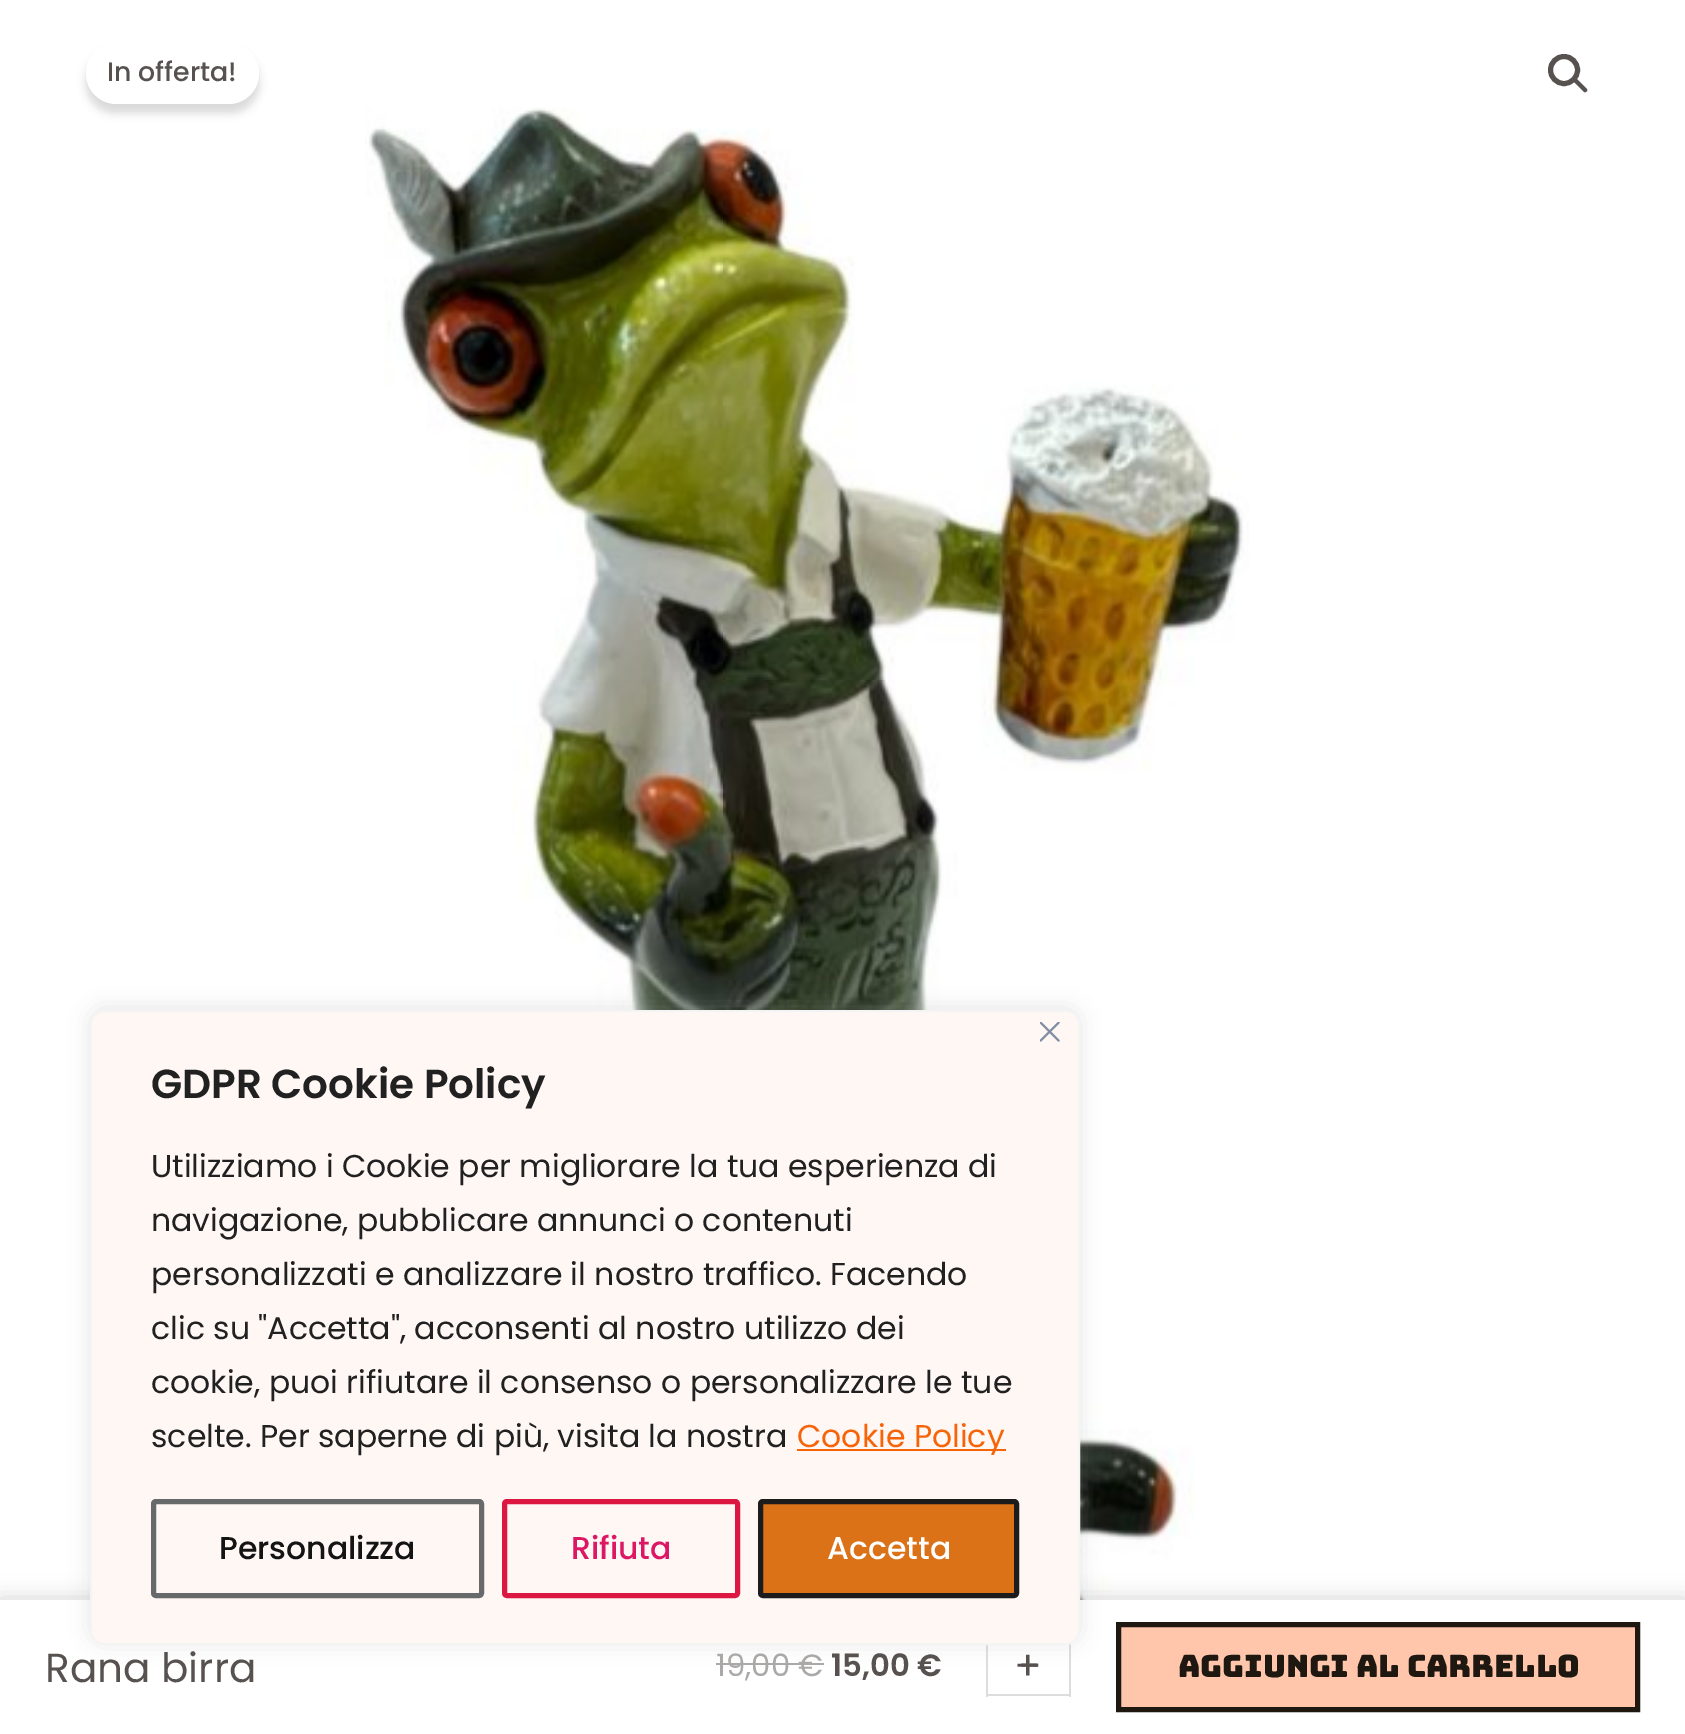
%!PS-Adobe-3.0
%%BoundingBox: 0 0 1685 1734
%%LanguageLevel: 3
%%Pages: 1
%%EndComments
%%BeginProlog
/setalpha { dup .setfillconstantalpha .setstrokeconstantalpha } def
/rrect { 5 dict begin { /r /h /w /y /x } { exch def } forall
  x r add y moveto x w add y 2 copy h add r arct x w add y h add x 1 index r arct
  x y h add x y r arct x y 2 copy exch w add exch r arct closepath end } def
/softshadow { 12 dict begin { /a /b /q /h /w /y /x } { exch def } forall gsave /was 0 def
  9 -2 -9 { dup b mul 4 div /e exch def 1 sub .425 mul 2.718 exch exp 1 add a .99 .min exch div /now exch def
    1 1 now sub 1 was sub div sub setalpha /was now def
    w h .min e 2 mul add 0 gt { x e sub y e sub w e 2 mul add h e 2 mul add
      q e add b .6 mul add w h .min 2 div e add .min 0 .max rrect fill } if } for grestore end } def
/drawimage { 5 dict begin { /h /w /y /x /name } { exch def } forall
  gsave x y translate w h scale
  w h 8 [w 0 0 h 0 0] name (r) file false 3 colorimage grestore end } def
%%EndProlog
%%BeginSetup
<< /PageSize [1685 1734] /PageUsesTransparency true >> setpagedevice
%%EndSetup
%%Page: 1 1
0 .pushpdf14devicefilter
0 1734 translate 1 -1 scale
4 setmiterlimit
1 setgray
0 0 1685 1734 rectfill
0 setgray
86 52 173 61 30.5 4.5 0.15 softshadow
1 setgray
86 43 173 61 30.5 rrect fill
0.341 0.322 0.314 setrgbcolor
5 setlinewidth
newpath 1564 70 13.5 0 360 arc closepath stroke
newpath 1574 79 moveto 1575 78 1576 78 1577 79 curveto 1586.5 88.5 lineto 1587.5 89.5 1587.5 91 1586.5 91.5 curveto 1585.5 92.5 1584.5 92.5 1583.5 91.5 curveto 1574 82 lineto 1573 81.5 1573 80 1574 79 curveto closepath fill
(images/1.raw) 365 107 884 1493 drawimage
0 setgray
0 1598 1685 135 0 10 0.06 softshadow
0 1598 1685 135 0 11 0.1 softshadow
1 setgray
0 1600 1685 134 rectfill
0.671 0.663 0.659 setrgbcolor
716 1663 108 2 rectfill
0.867 setgray
986 1694 85 2 rectfill
1069 1638 2 59 rectfill
986 1638 2 59 rectfill
0.675 0.671 0.671 setrgbcolor
90 1008 990 635 14 11 0.3 softshadow
1 0.969 0.957 setrgbcolor
91 1011 988 633 13 rrect gsave fill grestore
0.957 setgray
2 setlinewidth
stroke
(images/2.raw) 1040 1022 20 20 drawimage
0.969 0.388 0.031 setrgbcolor
797 1449 209 2 rectfill
0.408 0.412 0.42 setrgbcolor
5 setlinewidth
153.5 1501.5 328 94 2.5 rrect stroke
0.863 0.094 0.259 setrgbcolor
504.5 1501.5 233 94 2.5 rrect stroke
0.863 0.447 0.094 setrgbcolor
760.5 1501.5 256 94 2.5 rrect gsave fill grestore
0.114 0.11 0.11 setrgbcolor
stroke
1 0.776 0.675 setrgbcolor
newpath 1118.5 1624.5 moveto 1637.5 1624.5 lineto 1637.5 1709.5 lineto 1118.5 1709.5 lineto closepath gsave fill grestore
0.118 0.094 0.063 setrgbcolor
stroke
/Poppins-Medium [26.75 0 0 -26.75 0 0] selectfont
0.341 0.322 0.314 setrgbcolor
107 81 moveto (In offerta!) show
/Poppins-SemiBold [40.5 0 0 -40.5 0 0] selectfont
0.129 setgray
151 1098 moveto (GDPR Cookie Policy) show
/Poppins-Regular [31.5 0 0 -31.5 0 0] selectfont
151 1177 moveto (Utilizziamo i Cookie per migliorare la tua esperienza di) show
151 1231 moveto (navigazione, pubblicare annunci o contenuti) show
151 1285 moveto (personalizzati e analizzare il nostro traffico. Facendo) show
151 1339 moveto (clic su "Accetta", acconsenti al nostro utilizzo dei) show
151 1393 moveto (cookie, puoi rifiutare il consenso o personalizzare le tue) show
151 1447 moveto (scelte. Per saperne di più, visita la nostra) show
0.969 0.388 0.031 setrgbcolor
797 1447 moveto (Cookie Policy) show
/Poppins-Medium [31.5 0 0 -31.5 0 0] selectfont
0.078 0.078 0.082 setrgbcolor
219 1559 moveto (Personalizza) show
0.863 0.094 0.396 setrgbcolor
571 1559 moveto (Rifiuta) show
1 setgray
827 1559 moveto (Accetta) show
/Poppins-Regular [40.5 0 0 -40.5 0 0] selectfont
0.341 0.322 0.314 setrgbcolor
45 1682 moveto (Rana birra) show
/Poppins-Regular [30.75 0 0 -30.75 0 0] selectfont
0.671 0.663 0.659 setrgbcolor
716 1676 moveto (19,00 €) show
/Poppins-SemiBold [30.75 0 0 -30.75 0 0] selectfont
0.341 0.322 0.314 setrgbcolor
831 1676 moveto (15,00 €) show
/Poppins-Regular [40.5 0 0 -40.5 0 0] selectfont
1019 1680 moveto (-) show
1014 1680 moveto (+) show
/Bungee-Regular [30.75 0 0 -30.75 0 0] selectfont
0.118 0.094 0.063 setrgbcolor
1178 1677 moveto (Aggiungi Al Carrello) show
.poppdf14devicefilter showpage
%%EOF
